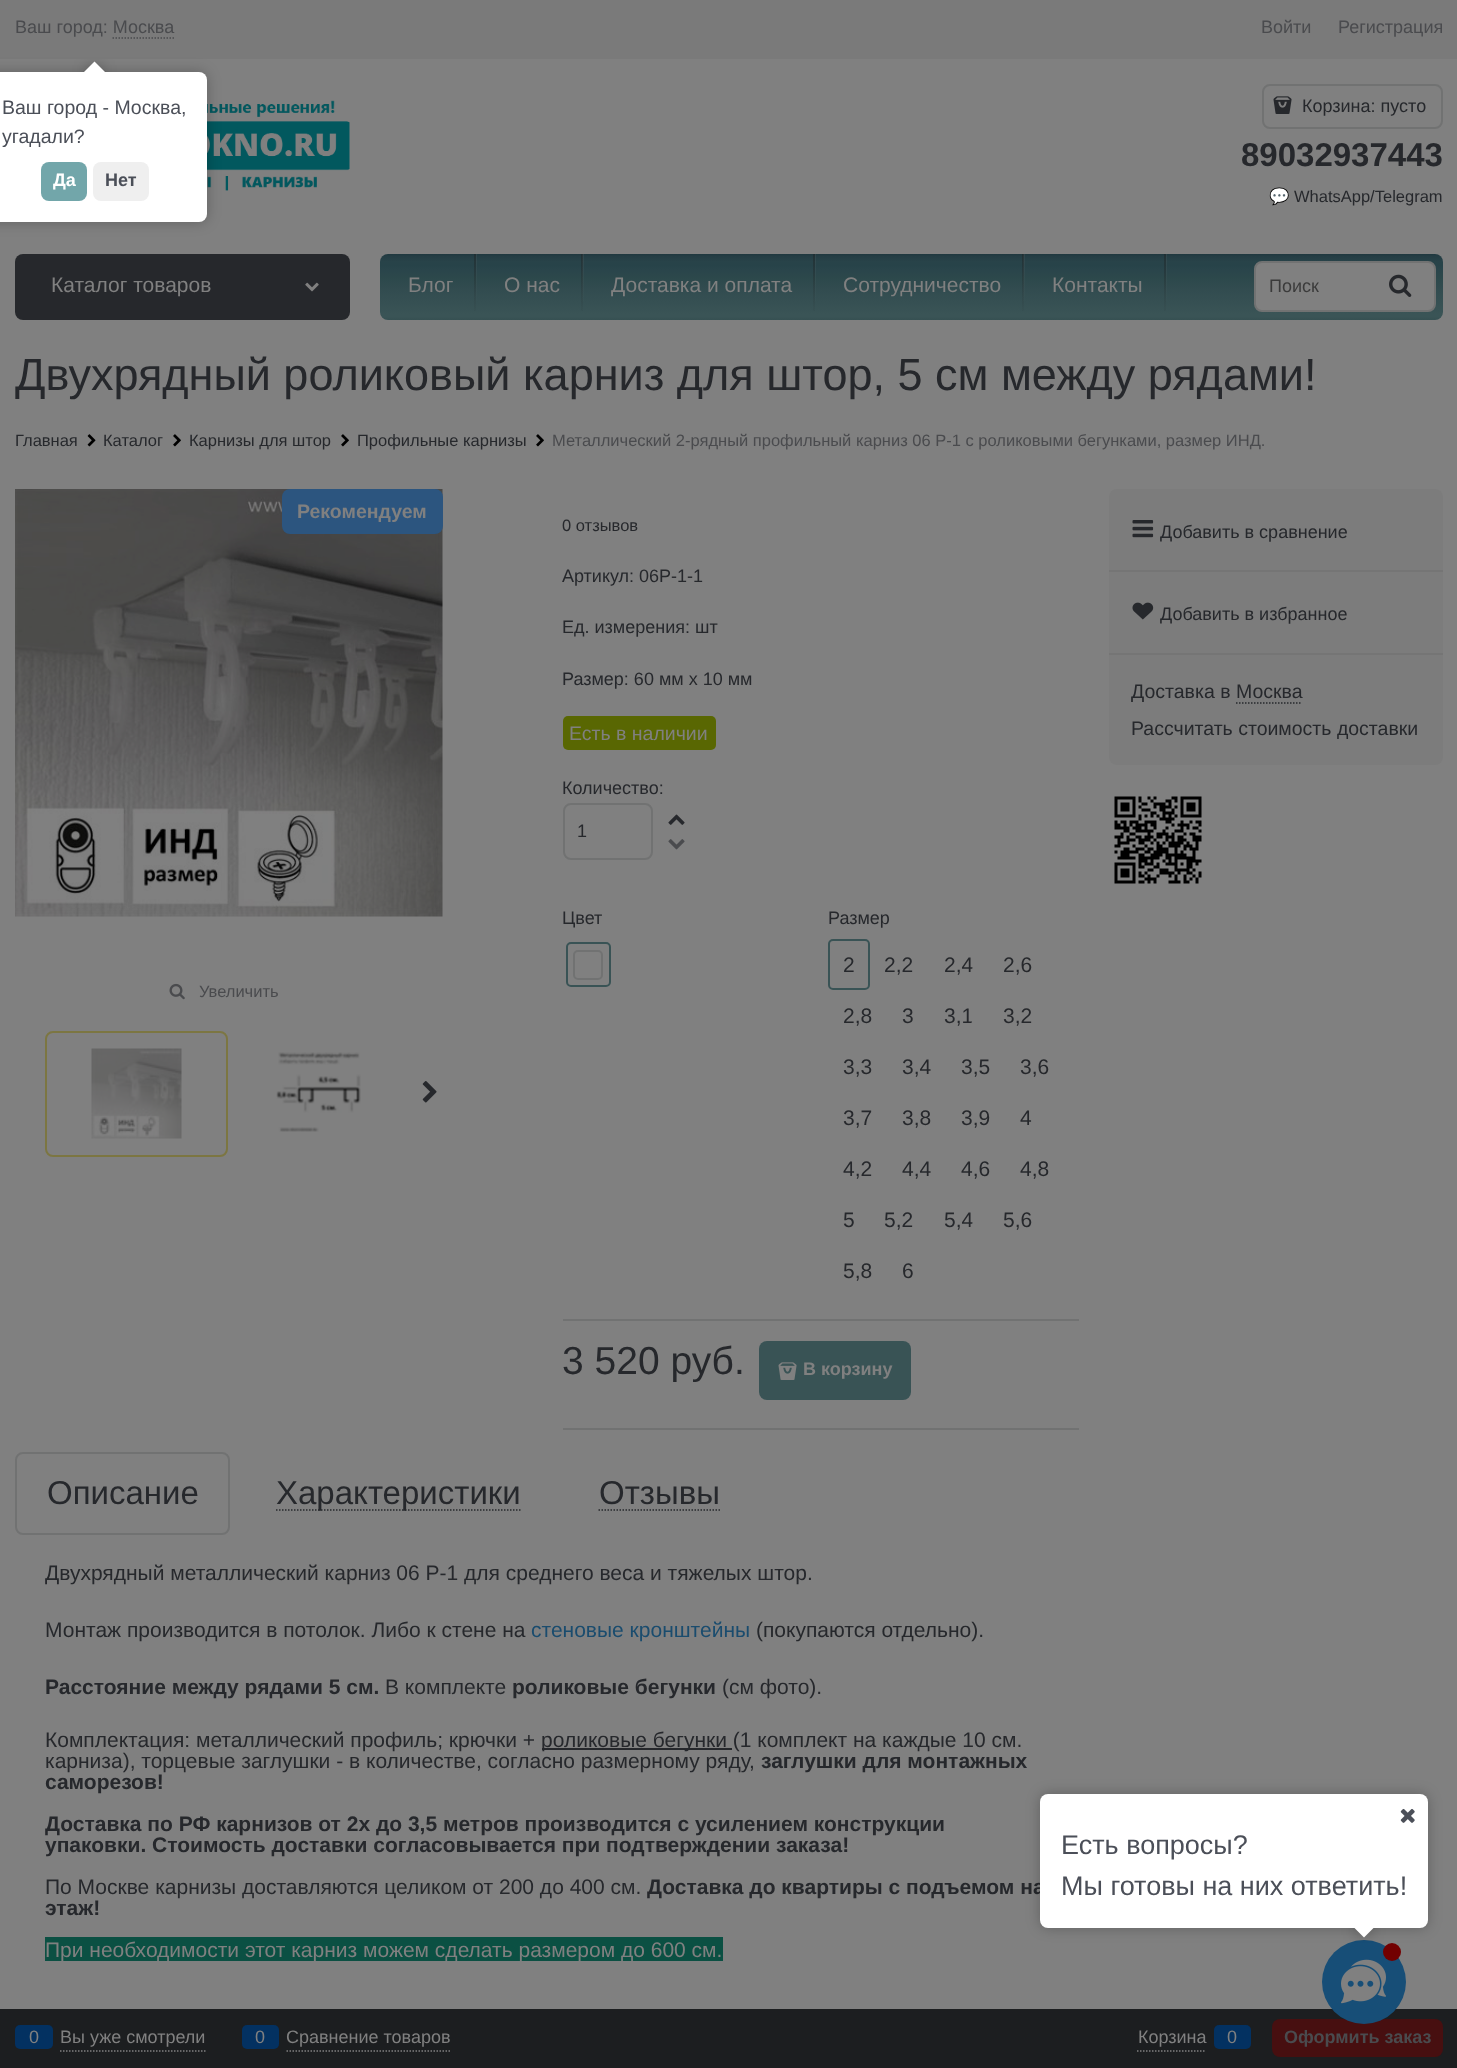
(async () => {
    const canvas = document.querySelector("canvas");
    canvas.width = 1457;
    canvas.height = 2068;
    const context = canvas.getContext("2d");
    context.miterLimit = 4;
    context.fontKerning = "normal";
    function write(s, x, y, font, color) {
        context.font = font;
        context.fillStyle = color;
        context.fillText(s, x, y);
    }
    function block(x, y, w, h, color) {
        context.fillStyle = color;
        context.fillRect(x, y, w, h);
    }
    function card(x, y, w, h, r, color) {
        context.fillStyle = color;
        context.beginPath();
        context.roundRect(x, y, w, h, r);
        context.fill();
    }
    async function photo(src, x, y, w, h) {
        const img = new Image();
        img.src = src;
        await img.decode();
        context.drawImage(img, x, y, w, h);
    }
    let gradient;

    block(0, 0, 1457, 2068, "rgb(128, 128, 128)");
    block(0, 0, 1457, 59, "rgb(122, 122, 122)");
    write("Ваш город: Москва", 15, 33, "18px Liberation Sans", "rgb(74, 75, 78)");
    context.beginPath();
    context.moveTo(112.5, 38);
    context.lineTo(174, 38);
    context.strokeStyle = "rgb(74, 75, 78)";
    context.lineWidth = 1.5;
    context.setLineDash([1.5, 1.5]);
    context.stroke();
    write("Войти", 1261, 33, "18px Liberation Sans", "rgb(74, 75, 78)");
    write("Регистрация", 1338, 33, "18px Liberation Sans", "rgb(74, 75, 78)");
    await photo("media/1.png", 207, 100, 143, 91);
    context.beginPath();
    context.roundRect(1263, 85, 179, 43, 7);
    context.strokeStyle = "rgb(113, 114, 114)";
    context.lineWidth = 2;
    context.setLineDash([]);
    context.stroke();
    await photo("media/2.png", 1273, 96, 19, 18);
    write("Корзина: пусто", 1302, 112, "18px Liberation Sans", "rgb(38, 40, 44)");
    write("89032937443", 1241, 166, "bold 33px Liberation Sans", "rgb(38, 40, 44)");
    write("💬", 1269, 202, "bold 16.5px Noto Color Emoji", "rgb(38, 40, 44)");
    write("WhatsApp/Telegram", 1294, 202, "16.5px Liberation Sans", "rgb(38, 40, 44)");
    card(15, 254, 335, 66, 8, "rgb(38, 40, 44)");
    write("Каталог товаров", 51, 292, "21px Liberation Sans", "rgb(128, 128, 128)");
    await photo("media/3.png", 305, 282, 14, 10);
    gradient = context.createLinearGradient(911, 253, 911, 320);
    gradient.addColorStop(0, "rgb(30, 54, 61)");
    gradient.addColorStop(0.05, "rgb(36, 61, 68)");
    gradient.addColorStop(0.13, "rgb(40, 67, 73)");
    gradient.addColorStop(0.18, "rgb(39, 67, 73)");
    gradient.addColorStop(0.26, "rgb(42, 69, 75)");
    gradient.addColorStop(0.36, "rgb(44, 72, 75)");
    gradient.addColorStop(0.51, "rgb(49, 75, 79)");
    gradient.addColorStop(0.92, "rgb(58, 84, 86)");
    gradient.addColorStop(0.95, "rgb(58, 84, 86)");
    gradient.addColorStop(1, "rgb(54, 80, 82)");
    context.fillStyle = gradient;
    context.beginPath();
    context.roundRect(380, 254, 1063, 66, 8);
    context.fill();
    write("Блог", 408, 292, "21px Liberation Sans", "rgb(128, 128, 128)");
    gradient = context.createLinearGradient(476, 254, 476, 320);
    gradient.addColorStop(0, "rgba(128, 128, 128, 0.14)");
    gradient.addColorStop(0.72, "rgba(128, 128, 128, 0.02)");
    gradient.addColorStop(1, "rgba(128, 128, 128, 0)");
    context.fillStyle = gradient;
    context.fillRect(476, 254, 1, 47);
    gradient = context.createLinearGradient(475, 254, 475, 320);
    gradient.addColorStop(0, "rgba(29, 29, 29, 0.39)");
    gradient.addColorStop(0.17, "rgba(29, 29, 29, 0.33)");
    gradient.addColorStop(0.61, "rgba(29, 29, 29, 0.12)");
    gradient.addColorStop(0.96, "rgba(29, 29, 29, 0.01)");
    gradient.addColorStop(0.98, "rgba(128, 128, 128, 0.01)");
    gradient.addColorStop(1, "rgba(128, 128, 128, 0)");
    context.fillStyle = gradient;
    context.fillRect(474, 254, 2, 57);
    write("О нас", 504, 292, "21px Liberation Sans", "rgb(128, 128, 128)");
    gradient = context.createLinearGradient(583, 254, 583, 320);
    gradient.addColorStop(0, "rgba(128, 128, 128, 0.14)");
    gradient.addColorStop(0.72, "rgba(128, 128, 128, 0.02)");
    gradient.addColorStop(1, "rgba(128, 128, 128, 0)");
    context.fillStyle = gradient;
    context.fillRect(582, 254, 2, 47);
    gradient = context.createLinearGradient(581, 254, 581, 320);
    gradient.addColorStop(0, "rgba(29, 29, 29, 0.39)");
    gradient.addColorStop(0.17, "rgba(29, 29, 29, 0.33)");
    gradient.addColorStop(0.61, "rgba(29, 29, 29, 0.12)");
    gradient.addColorStop(0.96, "rgba(29, 29, 29, 0.01)");
    gradient.addColorStop(0.98, "rgba(128, 128, 128, 0.01)");
    gradient.addColorStop(1, "rgba(128, 128, 128, 0)");
    context.fillStyle = gradient;
    context.fillRect(581, 254, 2, 57);
    write("Доставка и оплата", 611, 292, "21px Liberation Sans", "rgb(128, 128, 128)");
    gradient = context.createLinearGradient(815, 254, 815, 320);
    gradient.addColorStop(0, "rgba(128, 128, 128, 0.14)");
    gradient.addColorStop(0.72, "rgba(128, 128, 128, 0.02)");
    gradient.addColorStop(1, "rgba(128, 128, 128, 0)");
    context.fillStyle = gradient;
    context.fillRect(815, 254, 1, 47);
    gradient = context.createLinearGradient(814, 254, 814, 320);
    gradient.addColorStop(0, "rgba(29, 29, 29, 0.39)");
    gradient.addColorStop(0.17, "rgba(29, 29, 29, 0.33)");
    gradient.addColorStop(0.61, "rgba(29, 29, 29, 0.12)");
    gradient.addColorStop(0.96, "rgba(29, 29, 29, 0.01)");
    gradient.addColorStop(0.98, "rgba(128, 128, 128, 0.01)");
    gradient.addColorStop(1, "rgba(128, 128, 128, 0)");
    context.fillStyle = gradient;
    context.fillRect(813, 254, 2, 57);
    write("Сотрудничество", 843, 292, "21px Liberation Sans", "rgb(128, 128, 128)");
    gradient = context.createLinearGradient(1024, 254, 1024, 320);
    gradient.addColorStop(0, "rgba(128, 128, 128, 0.14)");
    gradient.addColorStop(0.72, "rgba(128, 128, 128, 0.02)");
    gradient.addColorStop(1, "rgba(128, 128, 128, 0)");
    context.fillStyle = gradient;
    context.fillRect(1023, 254, 2, 47);
    gradient = context.createLinearGradient(1022, 254, 1022, 320);
    gradient.addColorStop(0, "rgba(29, 29, 29, 0.39)");
    gradient.addColorStop(0.17, "rgba(29, 29, 29, 0.33)");
    gradient.addColorStop(0.61, "rgba(29, 29, 29, 0.12)");
    gradient.addColorStop(0.96, "rgba(29, 29, 29, 0.01)");
    gradient.addColorStop(0.98, "rgba(128, 128, 128, 0.01)");
    gradient.addColorStop(1, "rgba(128, 128, 128, 0)");
    context.fillStyle = gradient;
    context.fillRect(1022, 254, 2, 57);
    write("Контакты", 1052, 292, "21px Liberation Sans", "rgb(128, 128, 128)");
    gradient = context.createLinearGradient(1166, 254, 1166, 320);
    gradient.addColorStop(0, "rgba(128, 128, 128, 0.14)");
    gradient.addColorStop(0.72, "rgba(128, 128, 128, 0.02)");
    gradient.addColorStop(1, "rgba(128, 128, 128, 0)");
    context.fillStyle = gradient;
    context.fillRect(1166, 254, 1, 47);
    gradient = context.createLinearGradient(1165, 254, 1165, 320);
    gradient.addColorStop(0, "rgba(29, 29, 29, 0.39)");
    gradient.addColorStop(0.17, "rgba(29, 29, 29, 0.33)");
    gradient.addColorStop(0.61, "rgba(29, 29, 29, 0.12)");
    gradient.addColorStop(0.96, "rgba(29, 29, 29, 0.01)");
    gradient.addColorStop(0.98, "rgba(128, 128, 128, 0.01)");
    gradient.addColorStop(1, "rgba(128, 128, 128, 0)");
    context.fillStyle = gradient;
    context.fillRect(1164, 254, 2, 57);
    context.fillStyle = "rgb(128, 128, 128)";
    context.beginPath();
    context.roundRect(1255, 262, 180, 49, 7);
    context.fill();
    context.stroke();
    write("Поиск", 1269, 292, "18px Liberation Sans", "rgb(59, 59, 59)");
    await photo("media/4.png", 1389, 274, 23, 23);
    write("Двухрядный роликовый карниз для штор, 5 см между рядами!", 15, 390, "45px Liberation Sans", "rgb(38, 40, 44)");
    write("Главная", 15, 446, "16.5px Liberation Sans", "rgb(38, 40, 44)");
    await photo("media/5.png", 87, 434, 9, 13);
    write("Каталог", 103, 446, "16.5px Liberation Sans", "rgb(38, 40, 44)");
    await photo("media/6.png", 173, 434, 8, 13);
    write("Карнизы для штор", 189, 446, "16.5px Liberation Sans", "rgb(38, 40, 44)");
    await photo("media/6.png", 341, 434, 8, 13);
    write("Профильные карнизы", 357, 446, "16.5px Liberation Sans", "rgb(38, 40, 44)");
    await photo("media/6.png", 536, 434, 8, 13);
    write("Металлический 2-рядный профильный карниз 06 Р-1 с роликовыми бегунками, размер ИНД.", 552, 446, "16.5px Liberation Sans", "rgb(74, 75, 78)");
    await photo("media/7.png", 15, 489, 428, 428);
    card(282, 489, 161, 45, 8, "rgb(44, 85, 127)");
    write("Рекомендуем", 297, 518, "bold 19.5px Liberation Sans", "rgb(128, 128, 128)");
    await photo("media/8.png", 169, 983, 16, 17);
    write("Увеличить", 199, 997, "16.5px Liberation Sans", "rgb(74, 75, 78)");
    context.beginPath();
    context.roundRect(46, 1032, 181, 124, 7);
    context.strokeStyle = "rgb(124, 118, 66)";
    context.stroke();
    await photo("media/9.png", 91, 1048, 91, 91);
    await photo("media/10.png", 276, 1052, 85, 80);
    await photo("media/11.png", 422, 1081, 15, 22);
    write("0 отзывов", 562, 531, "16.5px Liberation Sans", "rgb(38, 40, 44)");
    write("Артикул:", 562, 582, "18px Liberation Sans", "rgb(38, 40, 44)");
    write("06Р-1-1", 639, 582, "18px Liberation Sans", "rgb(38, 40, 44)");
    write("Ед. измерения:", 562, 633, "18px Liberation Sans", "rgb(38, 40, 44)");
    write("шт", 695, 633, "18px Liberation Sans", "rgb(38, 40, 44)");
    write("Размер: 60 мм х 10 мм", 562, 685, "18px Liberation Sans", "rgb(38, 40, 44)");
    card(563, 716, 153, 34, 5, "rgb(89, 103, 2)");
    write("Есть в наличии", 569, 740, "19.5px Liberation Sans", "rgb(128, 128, 128)");
    write("Количество:", 562, 794, "18px Liberation Sans", "rgb(38, 40, 44)");
    context.beginPath();
    context.roundRect(564, 804, 88, 55, 7);
    context.strokeStyle = "rgb(113, 114, 114)";
    context.stroke();
    write("1", 577, 837, "18px Liberation Sans", "rgb(38, 40, 44)");
    await photo("media/12.png", 668, 814, 17, 11);
    await photo("media/13.png", 668, 839, 17, 11);
    write("Цвет", 562, 924, "18px Liberation Sans", "rgb(38, 40, 44)");
    context.beginPath();
    context.roundRect(567, 943, 43, 43, 4);
    context.strokeStyle = "rgb(57, 83, 85)";
    context.stroke();
    context.beginPath();
    context.roundRect(574, 951, 28, 28, 4);
    context.strokeStyle = "rgb(113, 114, 114)";
    context.stroke();
    write("Размер", 828, 924, "18px Liberation Sans", "rgb(38, 40, 44)");
    context.beginPath();
    context.roundRect(829, 940, 40, 49, 4);
    context.strokeStyle = "rgb(57, 83, 85)";
    context.stroke();
    write("2", 843, 972, "21px Liberation Sans", "rgb(38, 40, 44)");
    write("2,2", 884, 972, "21px Liberation Sans", "rgb(38, 40, 44)");
    write("2,4", 944, 972, "21px Liberation Sans", "rgb(38, 40, 44)");
    context.beginPath();
    context.arc(957, 965, 17, 0, Math.PI * 2);
    context.strokeStyle = "rgb(128, 128, 128)";
    context.stroke();
    write("2,6", 1003, 972, "21px Liberation Sans", "rgb(38, 40, 44)");
    write("2,8", 843, 1023, "21px Liberation Sans", "rgb(38, 40, 44)");
    write("3", 902, 1023, "21px Liberation Sans", "rgb(38, 40, 44)");
    write("3,1", 944, 1023, "21px Liberation Sans", "rgb(38, 40, 44)");
    context.beginPath();
    context.arc(957, 1016, 17, 0, Math.PI * 2);
    context.stroke();
    write("3,2", 1003, 1023, "21px Liberation Sans", "rgb(38, 40, 44)");
    write("3,3", 843, 1074, "21px Liberation Sans", "rgb(38, 40, 44)");
    write("3,4", 902, 1074, "21px Liberation Sans", "rgb(38, 40, 44)");
    write("3,5", 961, 1074, "21px Liberation Sans", "rgb(38, 40, 44)");
    write("3,6", 1020, 1074, "21px Liberation Sans", "rgb(38, 40, 44)");
    write("3,7", 843, 1125, "21px Liberation Sans", "rgb(38, 40, 44)");
    write("3,8", 902, 1125, "21px Liberation Sans", "rgb(38, 40, 44)");
    write("3,9", 961, 1125, "21px Liberation Sans", "rgb(38, 40, 44)");
    write("4", 1020, 1125, "21px Liberation Sans", "rgb(38, 40, 44)");
    write("4,2", 843, 1176, "21px Liberation Sans", "rgb(38, 40, 44)");
    write("4,4", 902, 1176, "21px Liberation Sans", "rgb(38, 40, 44)");
    write("4,6", 961, 1176, "21px Liberation Sans", "rgb(38, 40, 44)");
    write("4,8", 1020, 1176, "21px Liberation Sans", "rgb(38, 40, 44)");
    write("5", 843, 1227, "21px Liberation Sans", "rgb(38, 40, 44)");
    write("5,2", 884, 1227, "21px Liberation Sans", "rgb(38, 40, 44)");
    write("5,4", 944, 1227, "21px Liberation Sans", "rgb(38, 40, 44)");
    context.beginPath();
    context.arc(957, 1220, 17, 0, Math.PI * 2);
    context.stroke();
    write("5,6", 1003, 1227, "21px Liberation Sans", "rgb(38, 40, 44)");
    write("5,8", 843, 1278, "21px Liberation Sans", "rgb(38, 40, 44)");
    write("6", 902, 1278, "21px Liberation Sans", "rgb(38, 40, 44)");
    block(563, 1319, 516, 2, "rgb(113, 114, 114)");
    block(563, 1428, 516, 2, "rgb(113, 114, 114)");
    write("3 520 руб.", 562, 1374, "39px Liberation Sans", "rgb(38, 40, 44)");
    card(759, 1341, 152, 59, 8, "rgb(57, 83, 85)");
    await photo("media/14.png", 778, 1362, 19, 18);
    write("В корзину", 803, 1375, "bold 18px Liberation Sans", "rgb(128, 128, 128)");
    context.beginPath();
    context.roundRect(16, 1453, 213, 81, 7);
    context.strokeStyle = "rgb(113, 114, 114)";
    context.stroke();
    write("Описание", 47, 1504, "33px Liberation Sans", "rgb(38, 40, 44)");
    context.beginPath();
    context.moveTo(276, 1510);
    context.lineTo(520.5, 1510);
    context.strokeStyle = "rgb(38, 40, 44)";
    context.lineWidth = 1.5;
    context.setLineDash([1.5, 1.5]);
    context.stroke();
    write("Характеристики", 276, 1504, "33px Liberation Sans", "rgb(38, 40, 44)");
    context.beginPath();
    context.moveTo(598.5, 1510);
    context.lineTo(720, 1510);
    context.stroke();
    write("Отзывы", 599, 1504, "33px Liberation Sans", "rgb(38, 40, 44)");
    write("Двухрядный металлический карниз 06 Р-1 для среднего веса и тяжелых штор.", 45, 1580, "21px Liberation Sans", "rgb(38, 40, 44)");
    write("Монтаж производится в потолок. Либо к стене на", 45, 1637, "21px Liberation Sans", "rgb(38, 40, 44)");
    write("стеновые кронштейны", 531, 1637, "21px Liberation Sans", "rgb(26, 76, 110)");
    write("(покупаются отдельно).", 756, 1637, "21px Liberation Sans", "rgb(38, 40, 44)");
    write("Расстояние между рядами 5 см.", 45, 1694, "bold 21px Liberation Sans", "rgb(38, 40, 44)");
    write("В комплекте", 385, 1694, "21px Liberation Sans", "rgb(38, 40, 44)");
    write("роликовые бегунки", 512, 1694, "bold 21px Liberation Sans", "rgb(38, 40, 44)");
    write("(см фото).", 722, 1694, "21px Liberation Sans", "rgb(38, 40, 44)");
    write("Комплектация: металлический профиль; крючки +", 45, 1747, "21px Liberation Sans", "rgb(38, 40, 44)");
    block(542, 1748, 190, 2, "rgb(38, 40, 44)");
    write("роликовые бегунки (1 комплект на каждые 10 см.", 541, 1747, "21px Liberation Sans", "rgb(38, 40, 44)");
    write("карниза), торцевые заглушки - в количестве, согласно размерному ряду,", 45, 1768, "21px Liberation Sans", "rgb(38, 40, 44)");
    write("заглушки для монтажных", 761, 1768, "bold 21px Liberation Sans", "rgb(38, 40, 44)");
    write("саморезов!", 45, 1789, "bold 21px Liberation Sans", "rgb(38, 40, 44)");
    write("Доставка по РФ карнизов от 2х до 3,5 метров производится с усилением конструкции", 45, 1831, "bold 21px Liberation Sans", "rgb(38, 40, 44)");
    write("упаковки. Стоимость доставки согласовывается при подтверждении заказа!", 45, 1852, "bold 21px Liberation Sans", "rgb(38, 40, 44)");
    write("По Москве карнизы доставляются целиком от 200 до 400 см.", 45, 1894, "21px Liberation Sans", "rgb(38, 40, 44)");
    write("Доставка до квартиры с подъемом на", 647, 1894, "bold 21px Liberation Sans", "rgb(38, 40, 44)");
    write("этаж!", 45, 1915, "bold 21px Liberation Sans", "rgb(38, 40, 44)");
    block(45, 1937, 678, 24, "rgb(11, 80, 67)");
    write("При необходимости этот карниз можем сделать размером до 600 см.", 45, 1957, "21px Liberation Sans", "rgb(128, 128, 128)");
    card(1109, 489, 334, 276, 8, "rgb(124, 124, 124)");
    block(1109, 570, 334, 2, "rgb(117, 117, 117)");
    await photo("media/15.png", 1132, 520, 22, 18);
    write("Добавить в сравнение", 1160, 538, "18px Liberation Sans", "rgb(38, 40, 44)");
    block(1109, 653, 334, 2, "rgb(117, 117, 117)");
    await photo("media/16.png", 1132, 602, 22, 18);
    write("Добавить в избранное", 1160, 620, "18px Liberation Sans", "rgb(38, 40, 44)");
    write("Доставка в Москва", 1131, 698, "19.5px Liberation Sans", "rgb(38, 40, 44)");
    context.beginPath();
    context.moveTo(1236, 703);
    context.lineTo(1302, 703);
    context.stroke();
    write("Рассчитать стоимость доставки", 1131, 735, "19.5px Liberation Sans", "rgb(38, 40, 44)");
    await photo("media/17.png", 1114, 796, 88, 88);
    block(0, 2009, 1457, 59, "rgb(28, 30, 32)");
    context.beginPath();
    context.moveTo(60, 2051);
    context.lineTo(205.5, 2051);
    context.strokeStyle = "rgb(128, 128, 128)";
    context.stroke();
    card(15, 2025, 38, 24, 5, "rgb(3, 49, 97)");
    write("0", 29, 2043, "18px Liberation Sans", "rgb(128, 128, 128)");
    write("Вы уже смотрели", 60, 2043, "18px Liberation Sans", "rgb(128, 128, 128)");
    context.beginPath();
    context.moveTo(286.5, 2051);
    context.lineTo(450, 2051);
    context.stroke();
    card(242, 2025, 37, 24, 5, "rgb(3, 49, 97)");
    write("0", 255, 2043, "18px Liberation Sans", "rgb(128, 128, 128)");
    write("Сравнение товаров", 286, 2043, "18px Liberation Sans", "rgb(128, 128, 128)");
    context.beginPath();
    context.moveTo(1137, 2051);
    context.lineTo(1206, 2051);
    context.stroke();
    write("Корзина", 1138, 2043, "18px Liberation Sans", "rgb(128, 128, 128)");
    card(1214, 2025, 37, 24, 5, "rgb(3, 49, 97)");
    write("0", 1227, 2043, "18px Liberation Sans", "rgb(128, 128, 128)");
    card(1272, 2019, 171, 38, 8, "rgb(71, 15, 16)");
    write("Оформить заказ", 1284, 2043, "bold 18px Liberation Sans", "rgb(74, 75, 78)");
    context.fillStyle = "rgba(0, 0, 0, 0.25)";
    context.filter = "blur(7px)";
    context.beginPath();
    context.roundRect(-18, 72, 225, 150, 8);
    context.fill();
    context.filter = "none";
    card(-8, 72, 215, 150, 8, "rgb(255, 255, 255)");
    context.save();
    context.beginPath();
    context.rect(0, 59, 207, 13);
    context.clip();
    context.fillStyle = "rgba(0, 0, 0, 0.25)";
    context.filter = "blur(7px)";
    context.beginPath();
    context.rect(87, 65, 15, 15);
    context.fill();
    context.filter = "none";
    context.restore();
    context.save();
    context.beginPath();
    context.rect(0, 59, 207, 13);
    context.clip();
    context.beginPath();
    context.moveTo(94.5, 61.5);
    context.lineTo(105, 72);
    context.lineTo(94.5, 82.5);
    context.lineTo(84, 72);
    context.closePath();
    context.fill();
    context.restore();
    write("Ваш город - Москва,", 2, 114, "19.5px Liberation Sans", "rgb(75, 79, 88)");
    write("угадали?", 2, 143, "19.5px Liberation Sans", "rgb(75, 79, 88)");
    card(41, 162, 46, 39, 8, "rgb(114, 166, 170)");
    write("Да", 53, 186, "bold 18px Liberation Sans", "rgb(255, 255, 255)");
    card(93, 162, 56, 39, 8, "rgb(239, 239, 239)");
    write("Нет", 105, 186, "bold 18px Liberation Sans", "rgb(75, 79, 88)");
    context.fillStyle = "rgb(23, 78, 119)";
    context.beginPath();
    context.arc(1364, 1982, 42, 0, Math.PI * 2);
    context.fill();
    await photo("media/19.png", 1341, 1959, 45, 45);
    context.fillStyle = "rgb(114, 0, 1)";
    context.beginPath();
    context.arc(1392, 1952, 9, 0, Math.PI * 2);
    context.fill();
    context.fillStyle = "rgba(0, 0, 0, 0.25)";
    context.filter = "blur(7px)";
    context.beginPath();
    context.roundRect(1040, 1794, 388, 134, 8);
    context.fill();
    context.filter = "none";
    card(1040, 1794, 388, 134, 8, "rgb(255, 255, 255)");
    await photo("media/18.png", 1400, 1808, 15, 15);
    write("Есть вопросы?", 1061, 1854, "27px Liberation Sans", "rgb(75, 79, 88)");
    write("Мы готовы на них ответить!", 1061, 1895, "27px Liberation Sans", "rgb(75, 79, 88)");
    context.save();
    context.beginPath();
    context.rect(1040, 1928, 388, 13);
    context.clip();
    context.fillStyle = "rgba(0, 0, 0, 0.25)";
    context.filter = "blur(7px)";
    context.beginPath();
    context.rect(1356, 1920, 15, 15);
    context.fill();
    context.filter = "none";
    context.restore();
    context.save();
    context.beginPath();
    context.rect(1040, 1928, 388, 13);
    context.clip();
    context.fillStyle = "rgb(255, 255, 255)";
    context.beginPath();
    context.moveTo(1364, 1916.5);
    context.lineTo(1374.5, 1927);
    context.lineTo(1364, 1937.5);
    context.lineTo(1353.5, 1927);
    context.closePath();
    context.fill();
    context.restore();
})();
